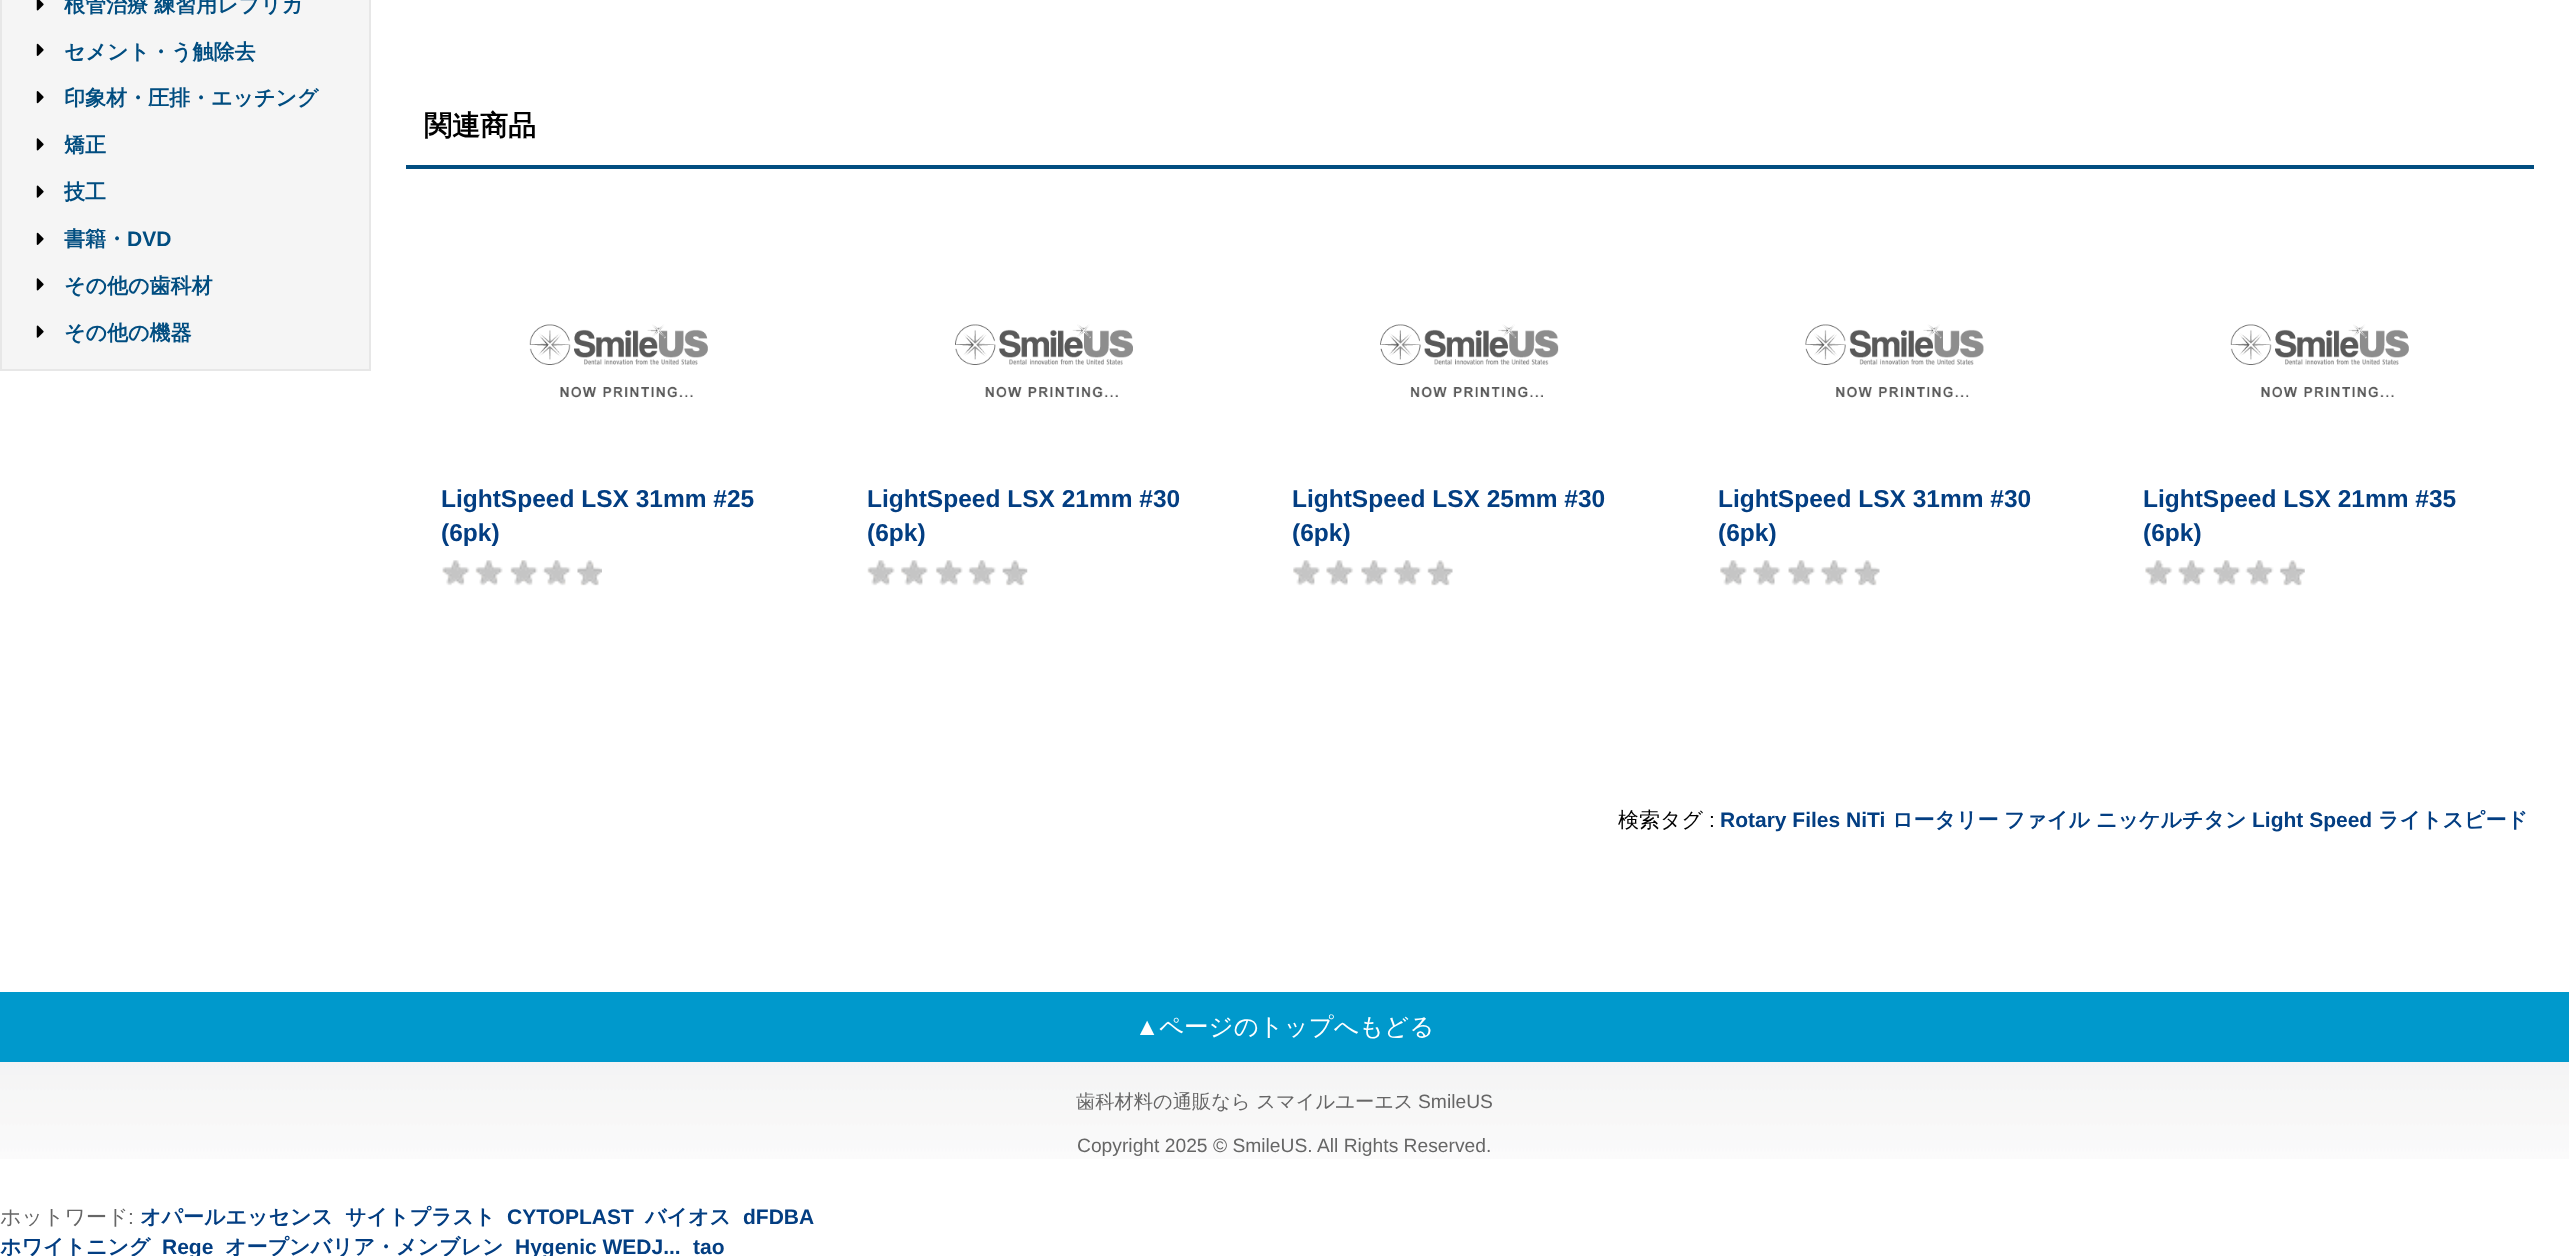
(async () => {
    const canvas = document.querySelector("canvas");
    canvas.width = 2569;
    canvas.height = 1256;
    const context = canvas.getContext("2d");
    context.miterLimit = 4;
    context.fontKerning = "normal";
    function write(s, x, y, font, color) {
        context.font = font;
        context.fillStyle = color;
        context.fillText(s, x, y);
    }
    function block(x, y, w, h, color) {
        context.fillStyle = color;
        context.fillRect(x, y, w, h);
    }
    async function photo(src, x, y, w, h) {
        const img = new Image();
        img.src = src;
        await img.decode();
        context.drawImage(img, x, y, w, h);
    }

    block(0, 0, 2569, 1256, "rgb(255, 255, 255)");
    context.fillStyle = "rgb(245, 245, 245)";
    context.beginPath();
    context.rect(1, -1, 369, 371);
    context.fill();
    context.strokeStyle = "rgb(231, 231, 231)";
    context.lineWidth = 2;
    context.stroke();
    await photo("media/1.png", 36, 0, 8, 11);
    write("根管治療 練習用レプリカ", 64, 12, "bold 21px WenQuanYi Zen Hei", "rgb(1, 77, 128)");
    await photo("media/2.png", 36, 43, 8, 13);
    write("セメント・う触除去", 64, 59, "bold 21px WenQuanYi Zen Hei", "rgb(1, 77, 128)");
    await photo("media/3.png", 36, 91, 8, 13);
    write("印象材・圧排・エッチング", 64, 105, "bold 21px WenQuanYi Zen Hei", "rgb(1, 77, 128)");
    await photo("media/4.png", 36, 138, 8, 13);
    write("矯正", 64, 152, "bold 21px WenQuanYi Zen Hei", "rgb(1, 77, 128)");
    await photo("media/5.png", 36, 185, 8, 13);
    write("技工", 64, 199, "bold 21px WenQuanYi Zen Hei", "rgb(1, 77, 128)");
    await photo("media/2.png", 36, 232, 8, 13);
    write("書籍・", 64, 246, "bold 21px WenQuanYi Zen Hei", "rgb(1, 77, 128)");
    write("DVD", 127, 246, "bold 21px Liberation Sans", "rgb(1, 77, 128)");
    await photo("media/4.png", 36, 278, 8, 13);
    write("その他の歯科材", 64, 293, "bold 21px WenQuanYi Zen Hei", "rgb(1, 77, 128)");
    await photo("media/5.png", 36, 325, 8, 13);
    write("その他の機器", 64, 340, "bold 21px WenQuanYi Zen Hei", "rgb(1, 77, 128)");
    block(406, 165, 2128, 4, "rgb(1, 77, 128)");
    write("関連商品", 424, 135, "bold 28px WenQuanYi Zen Hei", "rgb(0, 0, 0)");
    await photo("media/6.png", 529, 324, 179, 74);
    write("LightSpeed LSX 31mm #25", 441, 507, "bold 24.5px Liberation Sans", "rgb(3, 62, 130)");
    write("(6pk)", 441, 541, "bold 24.5px Liberation Sans", "rgb(3, 62, 130)");
    await photo("media/7.png", 442, 560, 160, 26);
    await photo("media/8.png", 955, 324, 178, 74);
    write("LightSpeed LSX 21mm #30", 867, 507, "bold 24.5px Liberation Sans", "rgb(3, 62, 130)");
    write("(6pk)", 867, 541, "bold 24.5px Liberation Sans", "rgb(3, 62, 130)");
    await photo("media/9.png", 867, 560, 161, 26);
    await photo("media/10.png", 1380, 324, 179, 74);
    write("LightSpeed LSX 25mm #30", 1292, 507, "bold 24.5px Liberation Sans", "rgb(3, 62, 130)");
    write("(6pk)", 1292, 541, "bold 24.5px Liberation Sans", "rgb(3, 62, 130)");
    await photo("media/11.png", 1293, 560, 160, 26);
    await photo("media/12.png", 1805, 324, 179, 74);
    write("LightSpeed LSX 31mm #30", 1718, 507, "bold 24.5px Liberation Sans", "rgb(3, 62, 130)");
    write("(6pk)", 1718, 541, "bold 24.5px Liberation Sans", "rgb(3, 62, 130)");
    await photo("media/13.png", 1720, 560, 160, 26);
    await photo("media/14.png", 2230, 324, 179, 74);
    write("LightSpeed LSX 21mm #35", 2143, 507, "bold 24.5px Liberation Sans", "rgb(3, 62, 130)");
    write("(6pk)", 2143, 541, "bold 24.5px Liberation Sans", "rgb(3, 62, 130)");
    await photo("media/15.png", 2145, 560, 160, 26);
    write("検索タグ", 1618, 827, "500 21px WenQuanYi Zen Hei", "rgb(0, 0, 0)");
    write(":", 1709, 827, "21px Liberation Sans", "rgb(0, 0, 0)");
    write("Rotary Files NiTi", 1720, 827, "bold 21px Liberation Sans", "rgb(3, 62, 130)");
    write("ロータリー", 1892, 827, "bold 21px WenQuanYi Zen Hei", "rgb(3, 62, 130)");
    write("ファイル", 2004, 827, "bold 21px WenQuanYi Zen Hei", "rgb(3, 62, 130)");
    write("ニッケルチタン", 2096, 827, "bold 21px WenQuanYi Zen Hei", "rgb(3, 62, 130)");
    write("Light Speed", 2252, 827, "bold 21px Liberation Sans", "rgb(3, 62, 130)");
    write("ライトスピード", 2378, 827, "bold 21px WenQuanYi Zen Hei", "rgb(3, 62, 130)");
    await photo("media/16.png", 0, 1062, 2569, 97);
    block(0, 992, 2569, 70, "rgb(0, 153, 204)");
    write("▲", 1135, 1035, "24.5px Liberation Sans", "rgb(255, 255, 255)");
    write("ページのトップへもどる", 1159, 1035, "500 24.5px WenQuanYi Zen Hei", "rgb(255, 255, 255)");
    write("歯科材料の通販なら スマイルユーエス", 1076, 1108, "500 19.25px WenQuanYi Zen Hei", "rgb(102, 102, 102)");
    write("SmileUS", 1418, 1108, "19.25px Liberation Sans", "rgb(102, 102, 102)");
    write("Copyright 2025 © SmileUS. All Rights Reserved.", 1077, 1152, "19.25px Liberation Sans", "rgb(102, 102, 102)");
    write("ホットワード", 0, 1224, "500 21px WenQuanYi Zen Hei", "rgb(102, 102, 102)");
    write(":", 128, 1224, "21px Liberation Sans", "rgb(102, 102, 102)");
    write("オパールエッセンス", 140, 1224, "bold 21px WenQuanYi Zen Hei", "rgb(3, 62, 130)");
    write("サイトプラスト", 345, 1224, "bold 21px WenQuanYi Zen Hei", "rgb(3, 62, 130)");
    write("CYTOPLAST", 507, 1224, "bold 21px Liberation Sans", "rgb(3, 62, 130)");
    write("バイオス", 645, 1224, "bold 21px WenQuanYi Zen Hei", "rgb(3, 62, 130)");
    write("dFDBA", 743, 1224, "bold 21px Liberation Sans", "rgb(3, 62, 130)");
    write("ホワイトニング", 0, 1254, "bold 21px WenQuanYi Zen Hei", "rgb(3, 62, 130)");
    write("Rege", 162, 1254, "bold 21px Liberation Sans", "rgb(3, 62, 130)");
    write("オープンバリア・メンブレン", 225, 1254, "bold 21px WenQuanYi Zen Hei", "rgb(3, 62, 130)");
    write("Hygenic WEDJ...", 515, 1254, "bold 21px Liberation Sans", "rgb(3, 62, 130)");
    write("tao", 693, 1254, "bold 21px Liberation Sans", "rgb(3, 62, 130)");
})();
